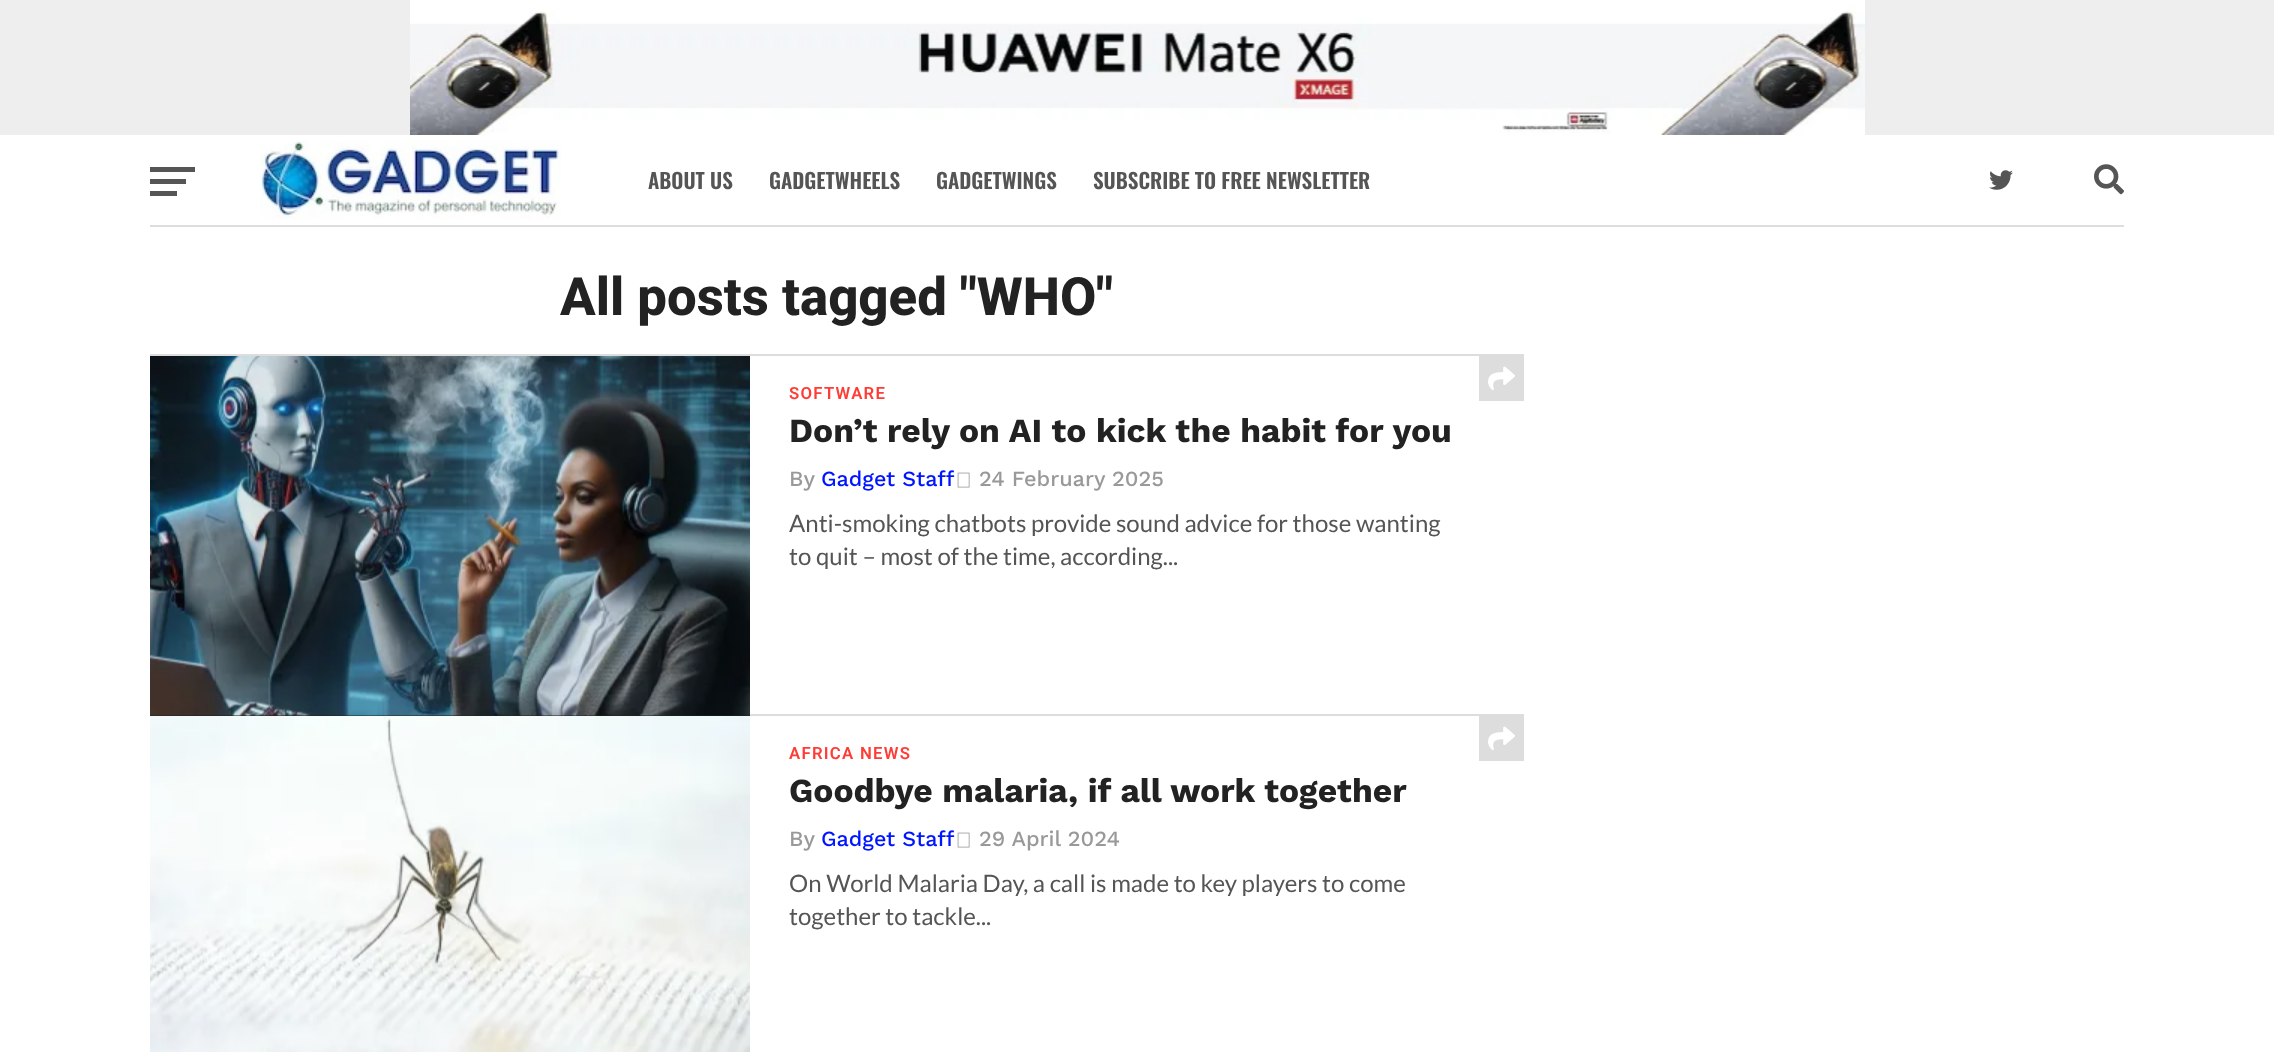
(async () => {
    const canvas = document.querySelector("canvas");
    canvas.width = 2274;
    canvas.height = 1052;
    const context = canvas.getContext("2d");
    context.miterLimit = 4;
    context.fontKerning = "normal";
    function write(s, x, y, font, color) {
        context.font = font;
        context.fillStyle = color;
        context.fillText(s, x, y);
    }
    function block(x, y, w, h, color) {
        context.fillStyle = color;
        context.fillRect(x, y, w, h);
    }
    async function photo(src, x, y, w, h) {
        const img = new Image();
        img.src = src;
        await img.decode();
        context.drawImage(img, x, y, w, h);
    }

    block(0, 0, 2274, 1052, "rgb(255, 255, 255)");
    block(0, 0, 2274, 135, "rgb(238, 238, 238)");
    await photo("media/1.png", 410, 0, 1455, 135);
    block(150, 167, 45, 5, "rgb(85, 85, 85)");
    block(150, 179, 36, 5, "rgb(85, 85, 85)");
    block(150, 191, 27, 5, "rgb(85, 85, 85)");
    await photo("media/2.png", 260, 141, 301, 78);
    write("ABOUT US", 648, 189, "600 21px Oswald", "rgb(85, 85, 85)");
    write("GADGETWHEELS", 769, 189, "600 21px Oswald", "rgb(85, 85, 85)");
    write("GADGETWINGS", 936, 189, "600 21px Oswald", "rgb(85, 85, 85)");
    write("SUBSCRIBE TO FREE NEWSLETTER", 1093, 189, "600 21px Oswald", "rgb(85, 85, 85)");
    await photo("media/3.png", 1989, 170, 24, 20);
    await photo("media/4.png", 2094, 164, 30, 31);
    block(150, 225, 1974, 2, "rgb(221, 221, 221)");
    write("All posts tagged \"WHO\"", 560, 315, "800 52.75px Roboto", "rgb(34, 34, 34)");
    block(150, 354, 1374, 2, "rgb(221, 221, 221)");
    block(150, 356, 600, 360, "rgb(34, 34, 34)");
    await photo("media/5.png", 150, 356, 600, 360);
    block(750, 714, 774, 2, "rgb(221, 221, 221)");
    context.letterSpacing = "1.25px";
    write("SOFTWARE", 789, 399, "600 16.75px Roboto", "rgb(255, 60, 54)");
    block(1479, 356, 45, 45, "rgb(221, 221, 221)");
    await photo("media/6.png", 1488, 366, 27, 24);
    context.letterSpacing = "0px";
    write("Don’t rely on AI to kick the habit for you", 789, 442, "bold 33.6px Work Sans", "rgb(34, 34, 34)");
    write("By", 789, 486, "500 21.75px Work Sans", "rgb(153, 153, 153)");
    write("Gadget Staff", 821, 486, "500 21.5px Work Sans", "rgb(0, 21, 255)");
    await photo("media/7.png", 957, 472, 13, 16);
    write("24 February 2025", 979, 486, "500 21.75px Work Sans", "rgb(153, 153, 153)");
    write("Anti-smoking chatbots provide sound advice for those wanting", 789, 532, "24px Lato", "rgb(85, 85, 85)");
    write("to quit – most of the time, according...", 789, 565, "24px Lato", "rgb(85, 85, 85)");
    await photo("media/8.png", 150, 716, 600, 336);
    context.letterSpacing = "1.25px";
    write("AFRICA NEWS", 789, 759, "600 16.75px Roboto", "rgb(255, 60, 54)");
    block(1479, 716, 45, 45, "rgb(221, 221, 221)");
    await photo("media/6.png", 1488, 726, 27, 24);
    context.letterSpacing = "0px";
    write("Goodbye malaria, if all work together", 789, 802, "bold 33.6px Work Sans", "rgb(34, 34, 34)");
    write("By", 789, 846, "500 21.75px Work Sans", "rgb(153, 153, 153)");
    write("Gadget Staff", 821, 846, "500 21.5px Work Sans", "rgb(0, 21, 255)");
    await photo("media/7.png", 957, 832, 13, 16);
    write("29 April 2024", 979, 846, "500 21.75px Work Sans", "rgb(153, 153, 153)");
    write("On World Malaria Day, a call is made to key players to come", 789, 892, "24px Lato", "rgb(85, 85, 85)");
    write("together to tackle...", 789, 925, "24px Lato", "rgb(85, 85, 85)");
})();
